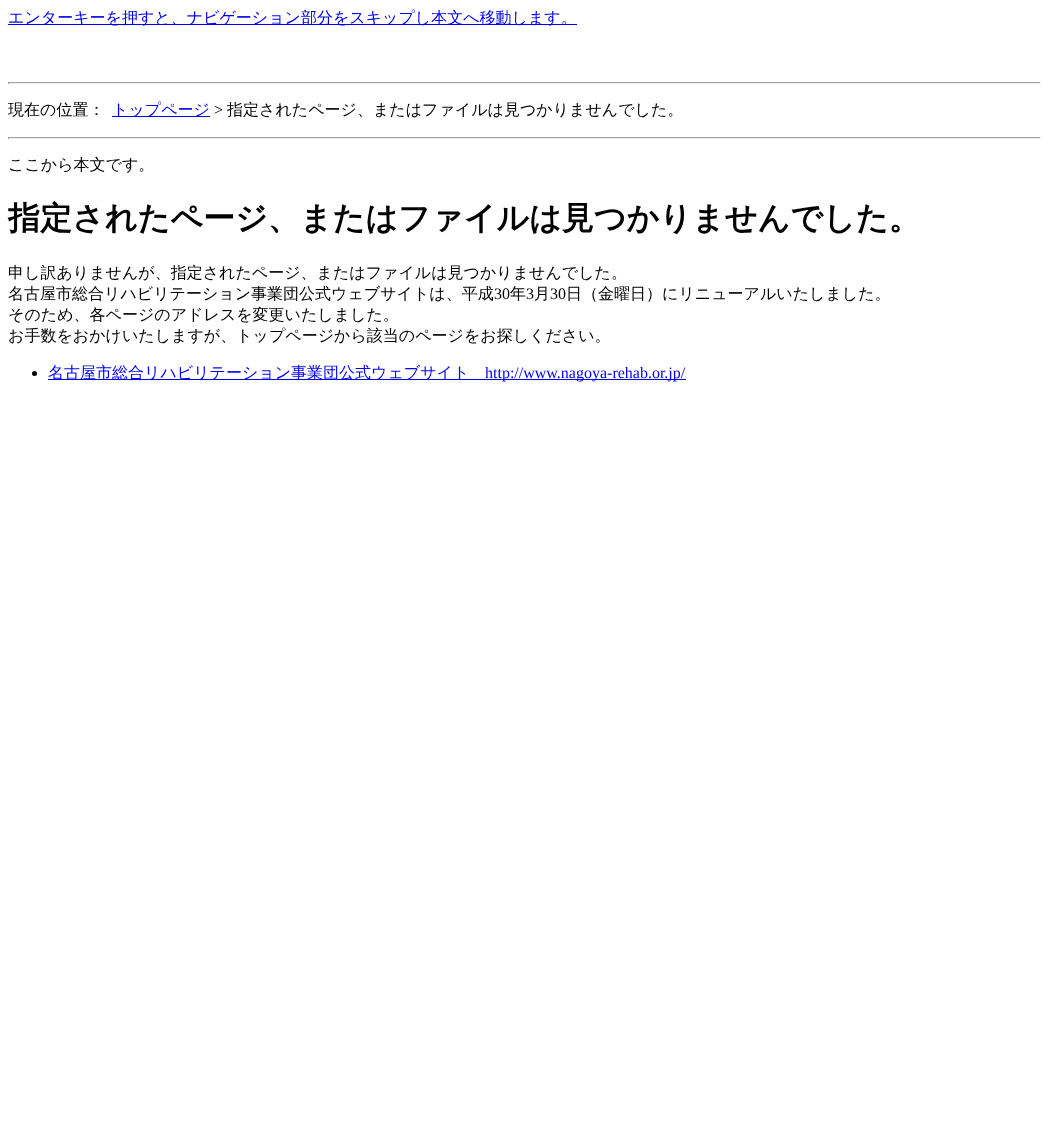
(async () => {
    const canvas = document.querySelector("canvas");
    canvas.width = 1049;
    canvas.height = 1127;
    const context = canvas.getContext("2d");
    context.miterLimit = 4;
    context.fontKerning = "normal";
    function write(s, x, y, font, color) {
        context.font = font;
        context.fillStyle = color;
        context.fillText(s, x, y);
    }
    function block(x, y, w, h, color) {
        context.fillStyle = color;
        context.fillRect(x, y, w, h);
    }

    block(0, 0, 1049, 1127, "rgb(255, 255, 255)");
    block(8, 24, 569, 1, "rgb(0, 0, 238)");
    write("エンターキーを押すと、ナビゲーション部分をスキップし本文へ移動します。", 8, 23, "500 16px WenQuanYi Zen Hei", "rgb(0, 0, 238)");
    block(8, 82, 1033, 1, "rgb(159, 159, 159)");
    block(1040, 82, 1, 2, "rgb(238, 238, 238)");
    block(8, 83, 1033, 1, "rgb(238, 238, 238)");
    block(8, 82, 1, 2, "rgb(159, 159, 159)");
    write("現在の位置：", 8, 115, "500 16px WenQuanYi Zen Hei", "rgb(0, 0, 0)");
    block(112, 116, 98, 1, "rgb(0, 0, 238)");
    write("トップページ", 112, 115, "500 16px WenQuanYi Zen Hei", "rgb(0, 0, 238)");
    write(">", 214, 115, "16px Liberation Serif", "rgb(0, 0, 0)");
    write("指定されたページ、またはファイルは見つかりませんでした。", 227, 115, "500 16px WenQuanYi Zen Hei", "rgb(0, 0, 0)");
    block(8, 137, 1033, 1, "rgb(159, 159, 159)");
    block(1040, 137, 1, 2, "rgb(238, 238, 238)");
    block(8, 138, 1033, 1, "rgb(238, 238, 238)");
    block(8, 137, 1, 2, "rgb(159, 159, 159)");
    write("ここから本文です。", 8, 170, "500 16px WenQuanYi Zen Hei", "rgb(0, 0, 0)");
    write("指定されたページ、またはファイルは見つかりませんでした。", 8, 229, "bold 32px WenQuanYi Zen Hei", "rgb(0, 0, 0)");
    write("申し訳ありませんが、指定されたページ、またはファイルは見つかりませんでした。", 8, 278, "500 16px WenQuanYi Zen Hei", "rgb(0, 0, 0)");
    write("名古屋市総合リハビリテーション事業団公式ウェブサイトは、平成", 8, 299, "500 16px WenQuanYi Zen Hei", "rgb(0, 0, 0)");
    write("30", 494, 299, "16px Liberation Serif", "rgb(0, 0, 0)");
    write("年", 510, 299, "500 16px WenQuanYi Zen Hei", "rgb(0, 0, 0)");
    write("3", 526, 299, "16px Liberation Serif", "rgb(0, 0, 0)");
    write("月", 534, 299, "500 16px WenQuanYi Zen Hei", "rgb(0, 0, 0)");
    write("30", 550, 299, "16px Liberation Serif", "rgb(0, 0, 0)");
    write("日（金曜日）にリニューアルいたしました。", 566, 299, "500 16px WenQuanYi Zen Hei", "rgb(0, 0, 0)");
    write("そのため、各ページのアドレスを変更いたしました。", 8, 320, "500 16px WenQuanYi Zen Hei", "rgb(0, 0, 0)");
    write("お手数をおかけいたしますが、トップページから該当のページをお探しください。", 8, 341, "500 16px WenQuanYi Zen Hei", "rgb(0, 0, 0)");
    context.beginPath();
    context.arc(34.5, 373.5, 2.5, 0, Math.PI * 2);
    context.fill();
    block(48, 379, 638, 1, "rgb(0, 0, 238)");
    write("名古屋市総合リハビリテーション事業団公式ウェブサイト", 48, 378, "500 16px WenQuanYi Zen Hei", "rgb(0, 0, 238)");
    write("http://www.nagoya-rehab.or.jp/", 485, 378, "16px Liberation Serif", "rgb(0, 0, 238)");
})();
